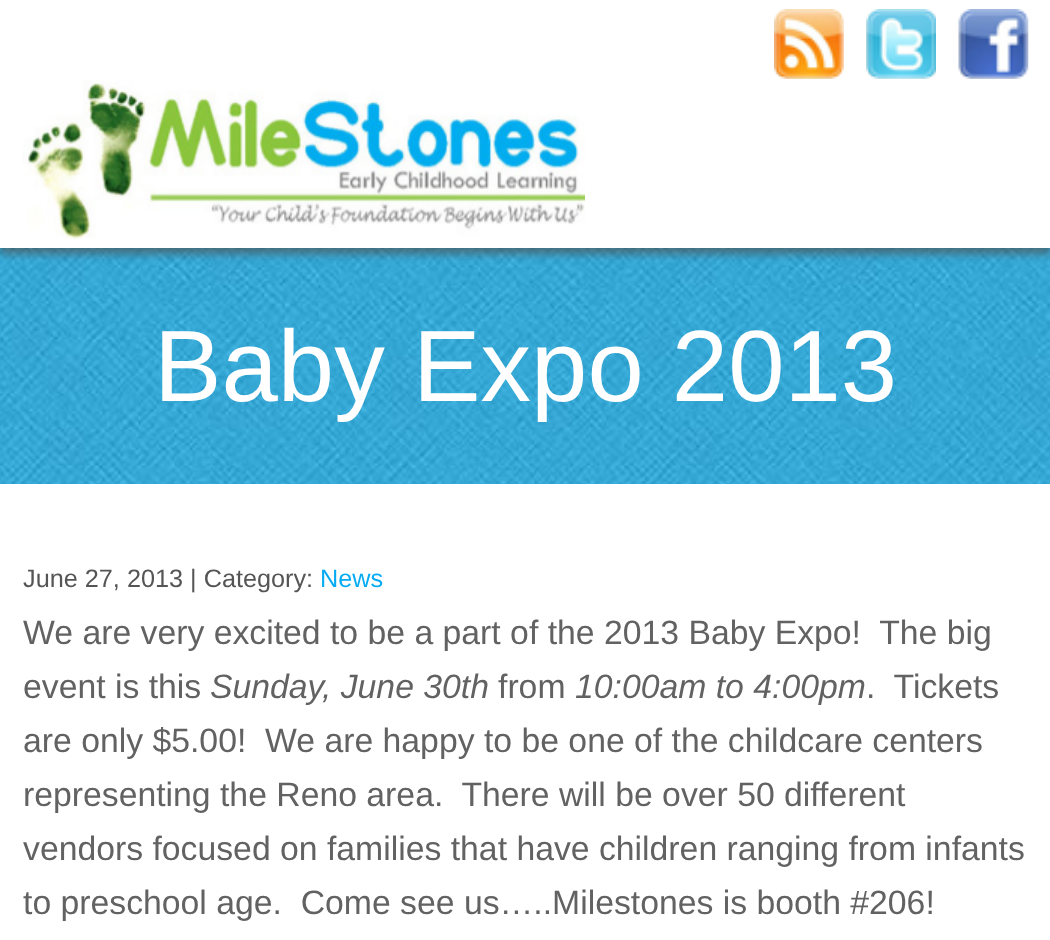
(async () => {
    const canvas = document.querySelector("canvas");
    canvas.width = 1050;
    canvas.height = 940;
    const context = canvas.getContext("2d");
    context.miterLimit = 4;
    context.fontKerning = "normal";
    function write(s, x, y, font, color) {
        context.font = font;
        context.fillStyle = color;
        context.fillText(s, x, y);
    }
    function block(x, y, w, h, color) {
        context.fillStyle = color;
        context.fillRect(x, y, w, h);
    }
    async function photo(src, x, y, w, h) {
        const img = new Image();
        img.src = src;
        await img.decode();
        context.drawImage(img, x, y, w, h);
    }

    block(0, 0, 1050, 940, "rgb(255, 255, 255)");
    await photo("media/1.png", 0, 248, 1050, 236);
    context.fillStyle = "rgba(78, 78, 78, 0.65)";
    context.filter = "blur(4.5px)";
    context.beginPath();
    context.rect(0, 7, 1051, 247);
    context.fill();
    context.filter = "none";
    block(0, 0, 1050, 248, "rgb(255, 255, 255)");
    await photo("media/2.png", 774, 9, 70, 70);
    await photo("media/3.png", 866, 9, 70, 70);
    await photo("media/4.png", 958, 9, 71, 70);
    await photo("media/5.png", 22, 79, 563, 160);
    write("Baby Expo 2013", 154, 401, "101.25px Liberation Sans", "rgb(255, 255, 255)");
    write("June 27, 2013 | Category:", 23, 587, "25.25px Liberation Sans", "rgb(85, 85, 85)");
    write("News", 320, 587, "25.25px Liberation Sans", "rgb(6, 171, 243)");
    write("We are very excited to be a part of the 2013 Baby Expo!  The big", 23, 644, "33.75px Liberation Sans", "rgb(98, 98, 98)");
    write("event is this", 23, 698, "33.75px Liberation Sans", "rgb(98, 98, 98)");
    write("Sunday, June 30th", 210, 698, "italic 33.75px Liberation Sans", "rgb(98, 98, 98)");
    write("from", 498, 698, "33.75px Liberation Sans", "rgb(98, 98, 98)");
    write("10:00am to 4:00pm", 575, 698, "italic 33.75px Liberation Sans", "rgb(98, 98, 98)");
    write(".  Tickets", 866, 698, "33.75px Liberation Sans", "rgb(98, 98, 98)");
    write("are only $5.00!  We are happy to be one of the childcare centers", 23, 752, "33.75px Liberation Sans", "rgb(98, 98, 98)");
    write("representing the Reno area.  There will be over 50 different", 23, 806, "33.75px Liberation Sans", "rgb(98, 98, 98)");
    write("vendors focused on families that have children ranging from infants", 23, 860, "33.75px Liberation Sans", "rgb(98, 98, 98)");
    write("to preschool age.  Come see us…..Milestones is booth #206!", 23, 914, "33.75px Liberation Sans", "rgb(98, 98, 98)");
})();
